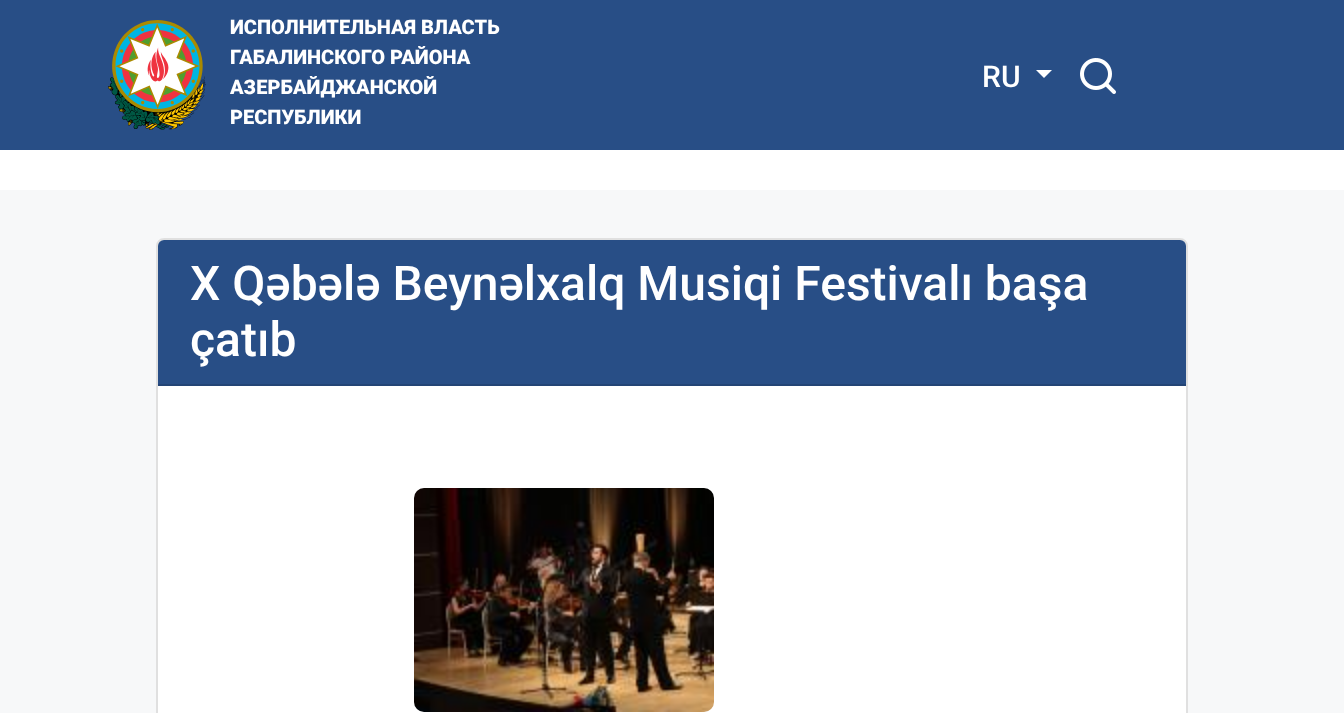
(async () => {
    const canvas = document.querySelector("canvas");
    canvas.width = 1344;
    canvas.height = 713;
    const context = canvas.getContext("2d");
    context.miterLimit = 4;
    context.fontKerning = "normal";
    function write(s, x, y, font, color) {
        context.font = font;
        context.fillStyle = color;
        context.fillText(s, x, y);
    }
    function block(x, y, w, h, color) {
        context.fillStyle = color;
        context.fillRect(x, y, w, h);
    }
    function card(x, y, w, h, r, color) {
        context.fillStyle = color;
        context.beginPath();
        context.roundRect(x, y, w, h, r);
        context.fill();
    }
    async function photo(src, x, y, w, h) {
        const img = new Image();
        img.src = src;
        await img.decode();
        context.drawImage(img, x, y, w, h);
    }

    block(0, 0, 1344, 713, "rgb(247, 248, 249)");
    block(0, 0, 1344, 150, "rgb(40, 78, 134)");
    await photo("media/1.png", 108, 20, 98, 110);
    write("ИСПОЛНИТЕЛЬНАЯ ВЛАСТЬ", 230, 34, "900 20px Roboto", "rgb(255, 255, 255)");
    write("ГАБАЛИНСКОГО РАЙОНА", 230, 64, "900 20px Roboto", "rgb(255, 255, 255)");
    write("АЗЕРБАЙДЖАНСКОЙ", 230, 94, "900 20px Roboto", "rgb(255, 255, 255)");
    write("РЕСПУБЛИКИ", 230, 124, "900 20px Roboto", "rgb(255, 255, 255)");
    write("RU", 982, 87, "500 30px Roboto", "rgb(255, 255, 255)");
    context.beginPath();
    context.moveTo(1036, 70);
    context.lineTo(1052, 70);
    context.lineTo(1044, 78);
    context.closePath();
    context.fill();
    await photo("media/2.png", 1080, 58, 36, 36);
    block(0, 150, 1344, 40, "rgb(255, 255, 255)");
    card(156, 238, 1032, 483, 8, "rgb(255, 255, 255)");
    context.beginPath();
    context.roundRect(157, 239, 1030, 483, 7);
    context.strokeStyle = "rgba(0, 0, 0, 0.12)";
    context.lineWidth = 2;
    context.stroke();
    context.fillStyle = "rgb(40, 78, 134)";
    context.beginPath();
    context.roundRect(158, 240, 1028, 146, [6, 6, 0, 0]);
    context.fill();
    block(158, 384, 1028, 2, "rgb(35, 68, 117)");
    write("X Qəbələ Beynəlxalq Musiqi Festivalı başa", 190, 300, "500 48px Roboto", "rgb(255, 255, 255)");
    write("çatıb", 190, 356, "500 48px Roboto", "rgb(255, 255, 255)");
    await photo("media/3.png", 414, 488, 300, 224);
})();
